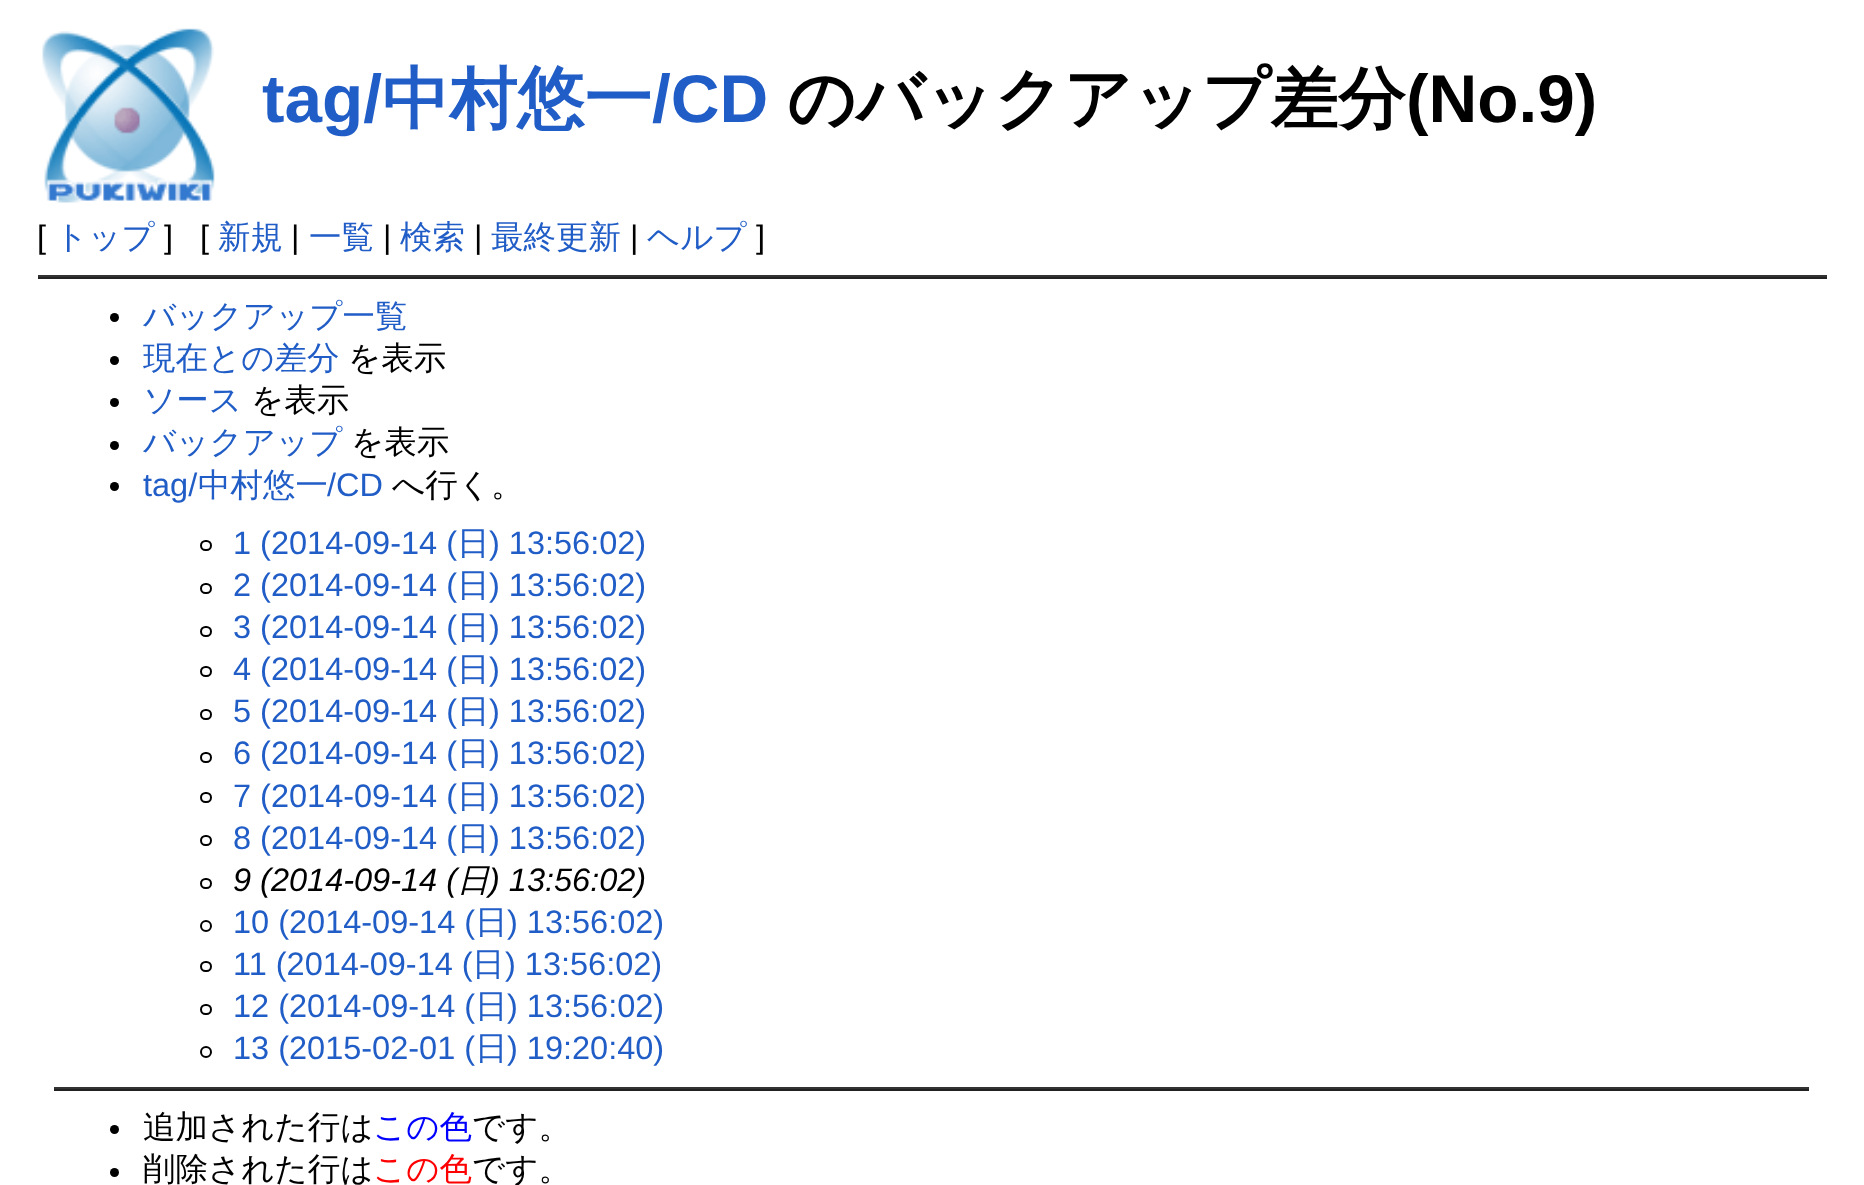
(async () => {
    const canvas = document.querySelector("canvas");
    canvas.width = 1864;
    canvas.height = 1185;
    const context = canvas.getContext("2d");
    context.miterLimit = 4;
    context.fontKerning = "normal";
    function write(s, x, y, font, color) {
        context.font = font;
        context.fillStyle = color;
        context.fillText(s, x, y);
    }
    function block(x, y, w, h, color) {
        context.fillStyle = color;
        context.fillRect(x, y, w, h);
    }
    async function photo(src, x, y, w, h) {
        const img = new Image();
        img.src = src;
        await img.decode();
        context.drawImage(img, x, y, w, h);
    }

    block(0, 0, 1864, 1185, "rgb(255, 255, 255)");
    await photo("media/1.png", 42, 28, 173, 175);
    write("tag/", 262, 122, "bold 67.5px Liberation Sans", "rgb(33, 93, 198)");
    write("中村悠一", 382, 122, "bold 67.5px WenQuanYi Zen Hei", "rgb(33, 93, 198)");
    write("/CD", 652, 122, "bold 67.5px Liberation Sans", "rgb(33, 93, 198)");
    write("のバックアップ差分", 787, 122, "bold 67.5px WenQuanYi Zen Hei", "rgb(0, 0, 0)");
    write("(No.9)", 1406, 122, "bold 67.5px Liberation Sans", "rgb(0, 0, 0)");
    write("[", 37, 248, "32.5px Liberation Sans", "rgb(0, 0, 0)");
    write("トップ", 55, 248, "500 32.5px WenQuanYi Zen Hei", "rgb(33, 93, 198)");
    write("]", 164, 248, "32.5px Liberation Sans", "rgb(0, 0, 0)");
    write("[", 200, 248, "32.5px Liberation Sans", "rgb(0, 0, 0)");
    write("新規", 218, 248, "500 32.5px WenQuanYi Zen Hei", "rgb(33, 93, 198)");
    write("|", 291, 248, "32.5px Liberation Sans", "rgb(0, 0, 0)");
    write("一覧", 309, 248, "500 32.5px WenQuanYi Zen Hei", "rgb(33, 93, 198)");
    write("|", 383, 248, "32.5px Liberation Sans", "rgb(0, 0, 0)");
    write("検索", 400, 248, "500 32.5px WenQuanYi Zen Hei", "rgb(33, 93, 198)");
    write("|", 474, 248, "32.5px Liberation Sans", "rgb(0, 0, 0)");
    write("最終更新", 491, 248, "500 32.5px WenQuanYi Zen Hei", "rgb(33, 93, 198)");
    write("|", 630, 248, "32.5px Liberation Sans", "rgb(0, 0, 0)");
    write("ヘルプ", 647, 248, "500 32.5px WenQuanYi Zen Hei", "rgb(33, 93, 198)");
    write("]", 756, 248, "32.5px Liberation Sans", "rgb(0, 0, 0)");
    block(38, 275, 1789, 2, "rgb(51, 51, 51)");
    block(38, 277, 1789, 2, "rgb(34, 34, 34)");
    context.fillStyle = "rgb(0, 0, 0)";
    context.beginPath();
    context.arc(114.5, 317.5, 4.5, 0, Math.PI * 2);
    context.fill();
    write("バックアップ一覧", 143, 327, "500 32.5px WenQuanYi Zen Hei", "rgb(33, 93, 198)");
    context.fillStyle = "rgb(0, 0, 0)";
    context.beginPath();
    context.arc(114.5, 360.5, 4.5, 0, Math.PI * 2);
    context.fill();
    write("現在との差分", 143, 369, "500 32.5px WenQuanYi Zen Hei", "rgb(33, 93, 198)");
    write("を表示", 348, 369, "500 32.5px WenQuanYi Zen Hei", "rgb(0, 0, 0)");
    context.beginPath();
    context.arc(114.5, 402.5, 4.5, 0, Math.PI * 2);
    context.fill();
    write("ソース", 143, 411, "500 32.5px WenQuanYi Zen Hei", "rgb(33, 93, 198)");
    write("を表示", 251, 411, "500 32.5px WenQuanYi Zen Hei", "rgb(0, 0, 0)");
    context.beginPath();
    context.arc(114.5, 445.5, 4.5, 0, Math.PI * 2);
    context.fill();
    write("バックアップ", 143, 453, "500 32.5px WenQuanYi Zen Hei", "rgb(33, 93, 198)");
    write("を表示", 351, 453, "500 32.5px WenQuanYi Zen Hei", "rgb(0, 0, 0)");
    context.beginPath();
    context.arc(114.5, 486.5, 4.5, 0, Math.PI * 2);
    context.fill();
    write("tag/", 143, 496, "32.5px Liberation Sans", "rgb(33, 93, 198)");
    write("中村悠一", 198, 496, "500 32.5px WenQuanYi Zen Hei", "rgb(33, 93, 198)");
    write("/CD", 327, 496, "32.5px Liberation Sans", "rgb(33, 93, 198)");
    write("へ行く。", 392, 496, "500 32.5px WenQuanYi Zen Hei", "rgb(0, 0, 0)");
    context.beginPath();
    context.roundRect(201, 541, 10, 9, 4.5);
    context.strokeStyle = "rgb(0, 0, 0)";
    context.lineWidth = 2;
    context.stroke();
    write("1 (2014-09-14 (", 233, 554, "32.5px Liberation Sans", "rgb(33, 93, 198)");
    write("日", 457, 554, "500 32.5px WenQuanYi Zen Hei", "rgb(33, 93, 198)");
    write(") 13:56:02)", 489, 554, "32.5px Liberation Sans", "rgb(33, 93, 198)");
    context.beginPath();
    context.roundRect(201, 584, 10, 9, 4.5);
    context.stroke();
    write("2 (2014-09-14 (", 233, 596, "32.5px Liberation Sans", "rgb(33, 93, 198)");
    write("日", 457, 596, "500 32.5px WenQuanYi Zen Hei", "rgb(33, 93, 198)");
    write(") 13:56:02)", 489, 596, "32.5px Liberation Sans", "rgb(33, 93, 198)");
    context.beginPath();
    context.roundRect(201, 627, 10, 9, 4.5);
    context.stroke();
    write("3 (2014-09-14 (", 233, 638, "32.5px Liberation Sans", "rgb(33, 93, 198)");
    write("日", 457, 638, "500 32.5px WenQuanYi Zen Hei", "rgb(33, 93, 198)");
    write(") 13:56:02)", 489, 638, "32.5px Liberation Sans", "rgb(33, 93, 198)");
    context.beginPath();
    context.roundRect(201, 667, 10, 9, 4.5);
    context.stroke();
    write("4 (2014-09-14 (", 233, 680, "32.5px Liberation Sans", "rgb(33, 93, 198)");
    write("日", 457, 680, "500 32.5px WenQuanYi Zen Hei", "rgb(33, 93, 198)");
    write(") 13:56:02)", 489, 680, "32.5px Liberation Sans", "rgb(33, 93, 198)");
    context.beginPath();
    context.roundRect(201, 710, 10, 9, 4.5);
    context.stroke();
    write("5 (2014-09-14 (", 233, 722, "32.5px Liberation Sans", "rgb(33, 93, 198)");
    write("日", 457, 722, "500 32.5px WenQuanYi Zen Hei", "rgb(33, 93, 198)");
    write(") 13:56:02)", 489, 722, "32.5px Liberation Sans", "rgb(33, 93, 198)");
    context.beginPath();
    context.roundRect(201, 753, 10, 9, 4.5);
    context.stroke();
    write("6 (2014-09-14 (", 233, 764, "32.5px Liberation Sans", "rgb(33, 93, 198)");
    write("日", 457, 764, "500 32.5px WenQuanYi Zen Hei", "rgb(33, 93, 198)");
    write(") 13:56:02)", 489, 764, "32.5px Liberation Sans", "rgb(33, 93, 198)");
    context.beginPath();
    context.roundRect(201, 793, 10, 9, 4.5);
    context.stroke();
    write("7 (2014-09-14 (", 233, 807, "32.5px Liberation Sans", "rgb(33, 93, 198)");
    write("日", 457, 807, "500 32.5px WenQuanYi Zen Hei", "rgb(33, 93, 198)");
    write(") 13:56:02)", 489, 807, "32.5px Liberation Sans", "rgb(33, 93, 198)");
    context.beginPath();
    context.roundRect(201, 836, 10, 9, 4.5);
    context.stroke();
    write("8 (2014-09-14 (", 233, 849, "32.5px Liberation Sans", "rgb(33, 93, 198)");
    write("日", 457, 849, "500 32.5px WenQuanYi Zen Hei", "rgb(33, 93, 198)");
    write(") 13:56:02)", 489, 849, "32.5px Liberation Sans", "rgb(33, 93, 198)");
    context.beginPath();
    context.roundRect(201, 879, 10, 9, 4.5);
    context.stroke();
    write("9 (2014-09-14 (", 233, 891, "italic 32.5px Liberation Sans", "rgb(0, 0, 0)");
    write("日", 457, 891, "italic 500 32.5px WenQuanYi Zen Hei", "rgb(0, 0, 0)");
    write(") 13:56:02)", 489, 891, "italic 32.5px Liberation Sans", "rgb(0, 0, 0)");
    context.beginPath();
    context.arc(206, 926, 5, 0, Math.PI * 2);
    context.stroke();
    write("10 (2014-09-14 (", 233, 933, "32.5px Liberation Sans", "rgb(33, 93, 198)");
    write("日", 475, 933, "500 32.5px WenQuanYi Zen Hei", "rgb(33, 93, 198)");
    write(") 13:56:02)", 507, 933, "32.5px Liberation Sans", "rgb(33, 93, 198)");
    context.beginPath();
    context.roundRect(201, 962, 10, 9, 4.5);
    context.stroke();
    write("11 (2014-09-14 (", 233, 975, "32.5px Liberation Sans", "rgb(33, 93, 198)");
    write("日", 472, 975, "500 32.5px WenQuanYi Zen Hei", "rgb(33, 93, 198)");
    write(") 13:56:02)", 505, 975, "32.5px Liberation Sans", "rgb(33, 93, 198)");
    context.beginPath();
    context.roundRect(201, 1005, 10, 9, 4.5);
    context.stroke();
    write("12 (2014-09-14 (", 233, 1017, "32.5px Liberation Sans", "rgb(33, 93, 198)");
    write("日", 475, 1017, "500 32.5px WenQuanYi Zen Hei", "rgb(33, 93, 198)");
    write(") 13:56:02)", 507, 1017, "32.5px Liberation Sans", "rgb(33, 93, 198)");
    context.beginPath();
    context.arc(206, 1052, 5, 0, Math.PI * 2);
    context.stroke();
    write("13 (2015-02-01 (", 233, 1059, "32.5px Liberation Sans", "rgb(33, 93, 198)");
    write("日", 475, 1059, "500 32.5px WenQuanYi Zen Hei", "rgb(33, 93, 198)");
    write(") 19:20:40)", 507, 1059, "32.5px Liberation Sans", "rgb(33, 93, 198)");
    block(54, 1087, 1755, 2, "rgb(51, 51, 51)");
    block(54, 1089, 1755, 2, "rgb(34, 34, 34)");
    context.fillStyle = "rgb(0, 0, 0)";
    context.beginPath();
    context.arc(114.5, 1129.5, 4.5, 0, Math.PI * 2);
    context.fill();
    write("追加された行は", 143, 1138, "500 32.5px WenQuanYi Zen Hei", "rgb(0, 0, 0)");
    write("この色", 373, 1138, "500 32.5px WenQuanYi Zen Hei", "rgb(0, 0, 255)");
    write("です。", 472, 1138, "500 32.5px WenQuanYi Zen Hei", "rgb(0, 0, 0)");
    context.beginPath();
    context.arc(114.5, 1172.5, 4.5, 0, Math.PI * 2);
    context.fill();
    write("削除された行は", 143, 1180, "500 32.5px WenQuanYi Zen Hei", "rgb(0, 0, 0)");
    write("この色", 373, 1180, "500 32.5px WenQuanYi Zen Hei", "rgb(255, 0, 0)");
    write("です。", 472, 1180, "500 32.5px WenQuanYi Zen Hei", "rgb(0, 0, 0)");
})();
